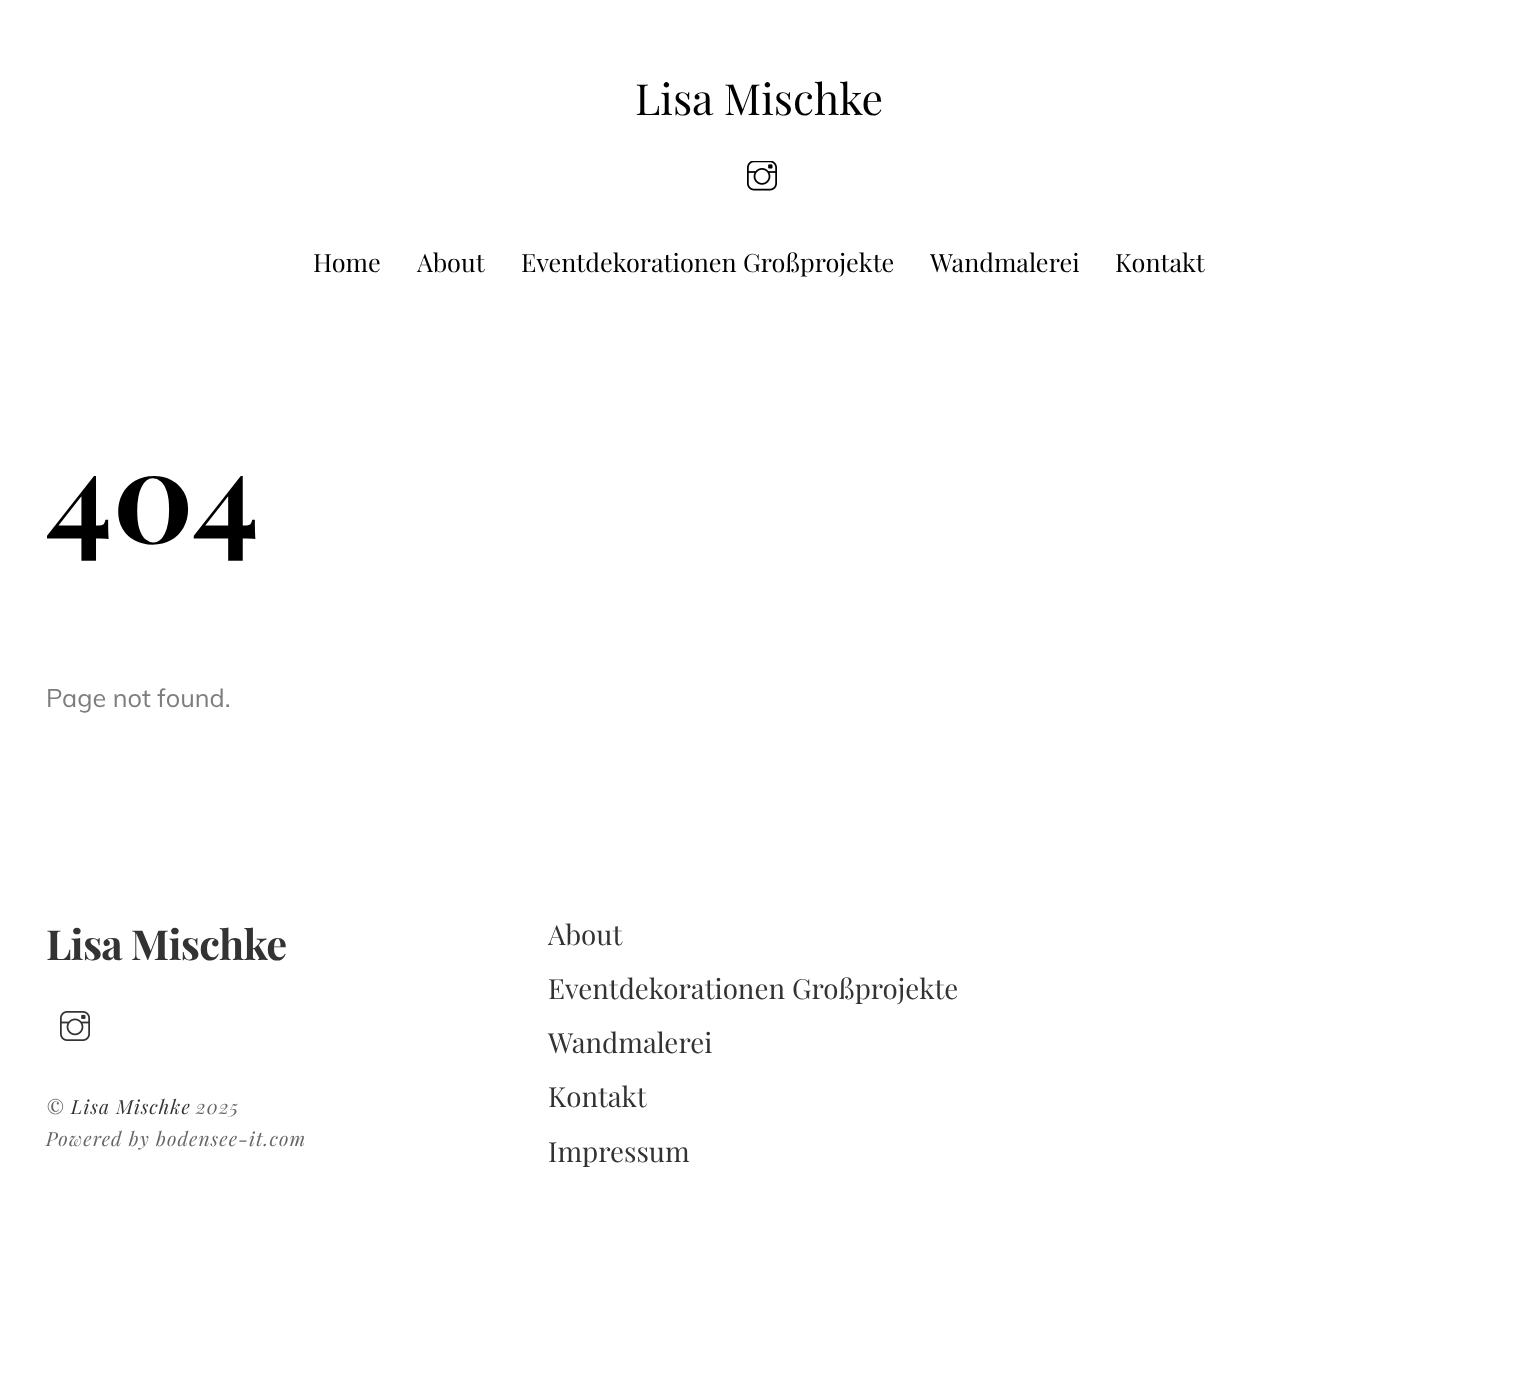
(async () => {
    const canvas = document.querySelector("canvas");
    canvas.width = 1518;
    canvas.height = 1387;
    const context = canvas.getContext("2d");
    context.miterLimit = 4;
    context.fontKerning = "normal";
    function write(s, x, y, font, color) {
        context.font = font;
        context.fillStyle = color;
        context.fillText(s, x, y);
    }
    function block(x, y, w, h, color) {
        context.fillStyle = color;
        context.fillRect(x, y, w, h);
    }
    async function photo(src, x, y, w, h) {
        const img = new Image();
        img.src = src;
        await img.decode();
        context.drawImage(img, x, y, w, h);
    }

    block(0, 0, 1518, 1387, "rgb(255, 255, 255)");
    write("Lisa Mischke", 635, 115, "43px Playfair Display", "rgb(0, 0, 0)");
    await photo("media/1.png", 747, 161, 30, 30);
    write("Home", 313, 272, "25.25px Playfair Display", "rgb(0, 0, 0)");
    write("About", 417, 272, "25.25px Playfair Display", "rgb(0, 0, 0)");
    write("Eventdekorationen Großprojekte", 521, 272, "25.25px Playfair Display", "rgb(0, 0, 0)");
    write("Wandmalerei", 930, 272, "25.25px Playfair Display", "rgb(0, 0, 0)");
    write("Kontakt", 1115, 272, "25.25px Playfair Display", "rgb(0, 0, 0)");
    write("404", 46, 543, "bold 126px Playfair Display", "rgb(0, 0, 0)");
    write("Page not found.", 46, 707, "25.25px Muli", "rgb(125, 125, 125)");
    context.letterSpacing = "-0.75px";
    write("Lisa Mischke", 46, 960, "bold 41.5px Playfair Display", "rgb(51, 51, 51)");
    await photo("media/2.png", 60, 1011, 30, 30);
    context.letterSpacing = "1.1px";
    write("©", 46, 1114, "italic 19.4px Playfair Display", "rgb(102, 102, 102)");
    write("Lisa Mischke", 71, 1114, "italic 19.4px Playfair Display", "rgb(51, 51, 51)");
    write("2025", 196, 1114, "italic 19.4px Playfair Display", "rgb(102, 102, 102)");
    write("Powered by bodensee-it.com", 46, 1146, "italic 19.4px Playfair Display", "rgb(102, 102, 102)");
    context.letterSpacing = "0px";
    write("About", 548, 945, "27.75px Playfair Display", "rgb(51, 51, 51)");
    write("Eventdekorationen Großprojekte", 548, 999, "27.75px Playfair Display", "rgb(51, 51, 51)");
    write("Wandmalerei", 548, 1053, "27.75px Playfair Display", "rgb(51, 51, 51)");
    write("Kontakt", 548, 1107, "27.75px Playfair Display", "rgb(51, 51, 51)");
    write("Impressum", 548, 1162, "27.75px Playfair Display", "rgb(51, 51, 51)");
})();
